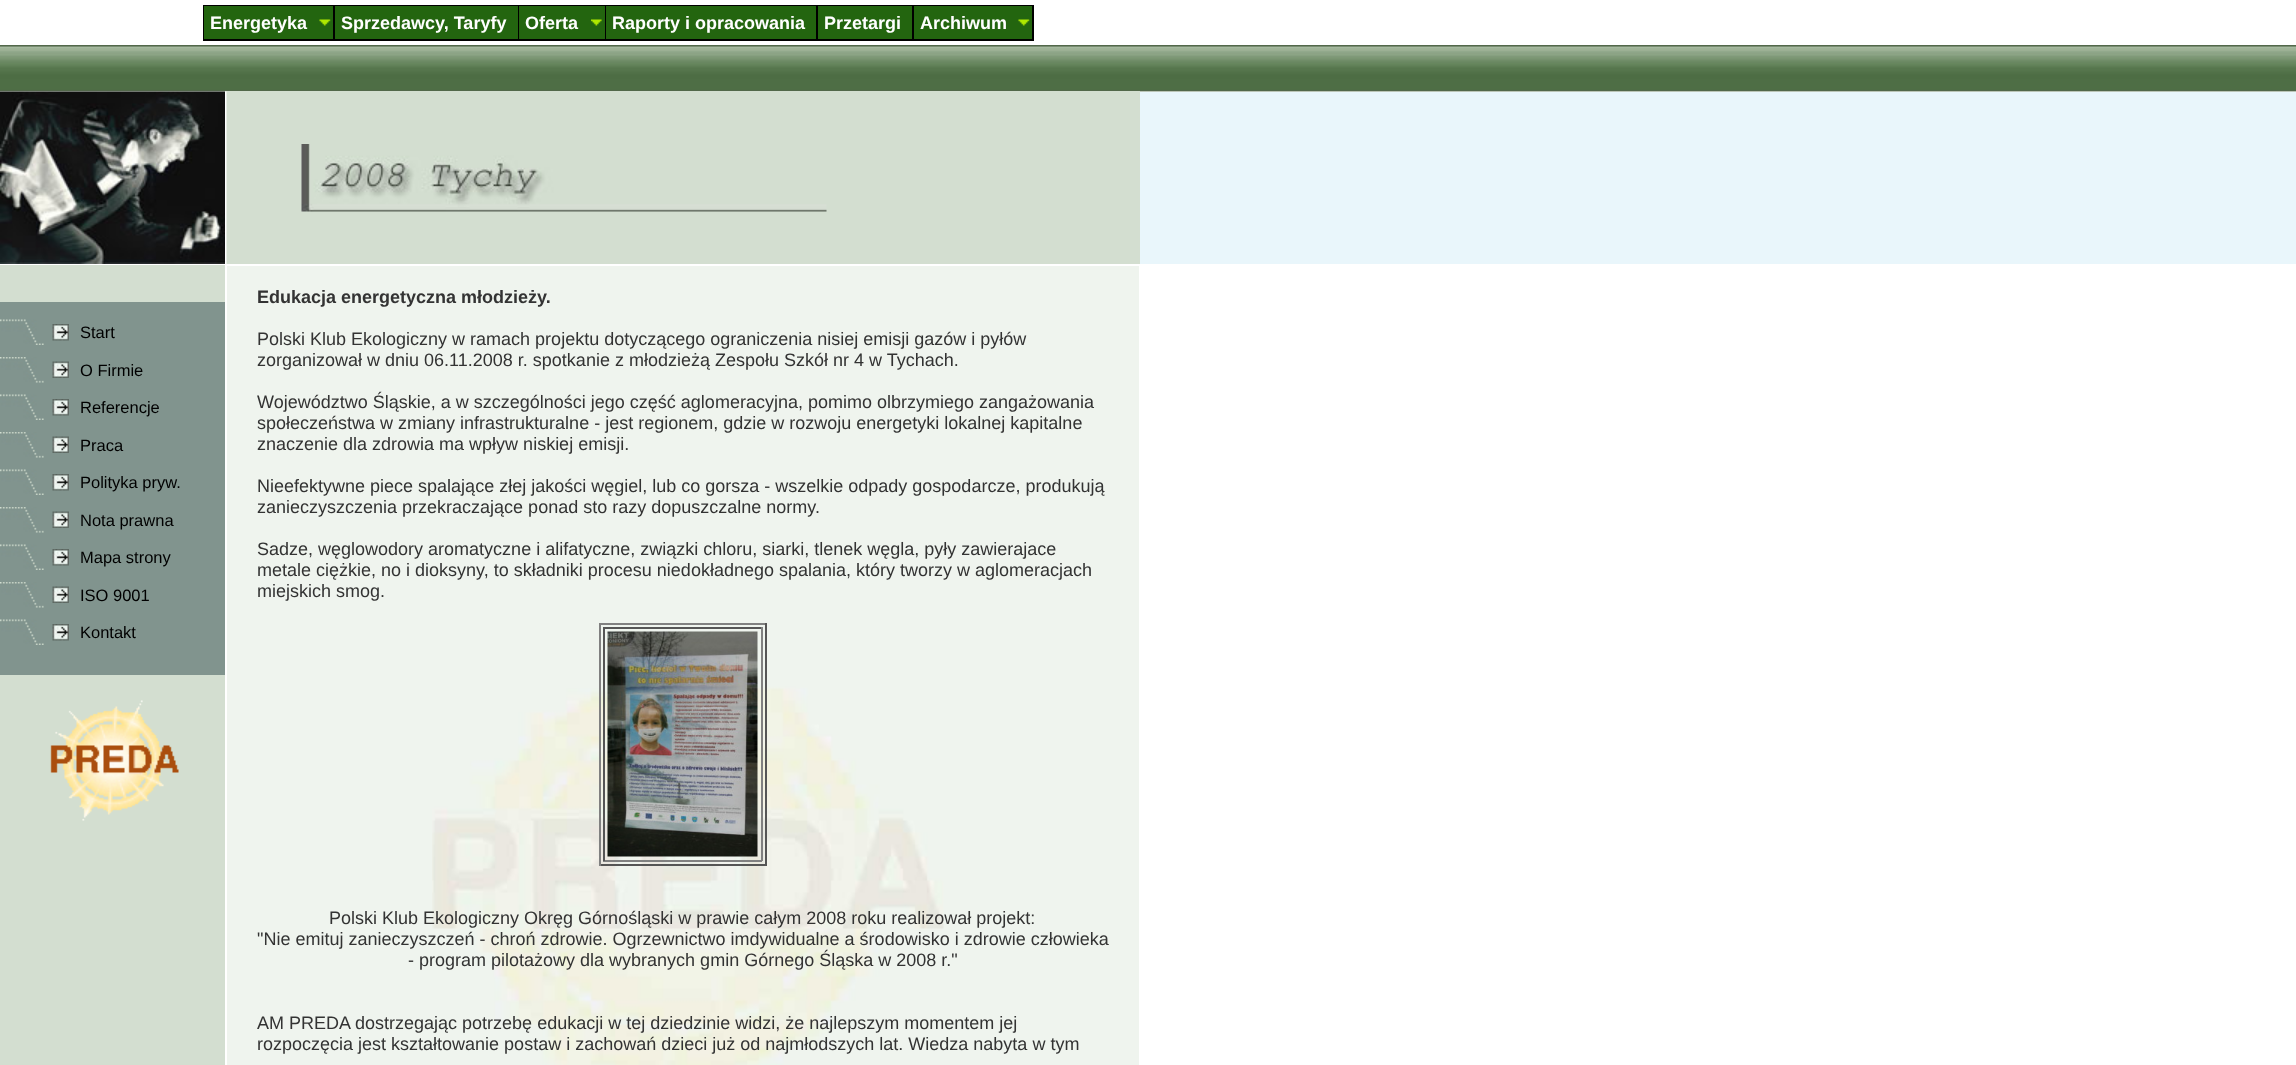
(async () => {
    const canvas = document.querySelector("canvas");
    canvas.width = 2296;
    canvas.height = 1065;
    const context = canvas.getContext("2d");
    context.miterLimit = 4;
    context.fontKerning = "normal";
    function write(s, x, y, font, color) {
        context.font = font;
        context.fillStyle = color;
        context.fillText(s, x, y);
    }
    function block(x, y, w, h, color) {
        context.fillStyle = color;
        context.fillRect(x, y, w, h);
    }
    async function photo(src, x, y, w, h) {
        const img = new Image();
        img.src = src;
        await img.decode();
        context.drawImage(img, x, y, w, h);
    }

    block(0, 0, 2296, 1065, "rgb(255, 255, 255)");
    block(203, 5, 831, 36, "rgb(0, 0, 0)");
    block(204, 6, 129, 33, "rgb(35, 101, 15)");
    write("Energetyka", 210, 29, "bold 18px Liberation Sans", "rgb(255, 255, 255)");
    await photo("media/1.png", 319, 19, 12, 7);
    block(335, 6, 183, 33, "rgb(35, 101, 15)");
    write("Sprzedawcy, Taryfy", 341, 29, "bold 18px Liberation Sans", "rgb(255, 255, 255)");
    block(519, 6, 86, 33, "rgb(35, 101, 15)");
    write("Oferta", 525, 29, "bold 18px Liberation Sans", "rgb(255, 255, 255)");
    await photo("media/2.png", 591, 19, 11, 7);
    block(606, 6, 210, 33, "rgb(35, 101, 15)");
    write("Raporty i opracowania", 612, 29, "bold 18px Liberation Sans", "rgb(255, 255, 255)");
    block(818, 6, 94, 33, "rgb(35, 101, 15)");
    write("Przetargi", 824, 29, "bold 18px Liberation Sans", "rgb(255, 255, 255)");
    block(914, 6, 118, 33, "rgb(35, 101, 15)");
    write("Archiwum", 920, 29, "bold 18px Liberation Sans", "rgb(255, 255, 255)");
    await photo("media/1.png", 1018, 19, 12, 7);
    await photo("media/3.png", 0, 45, 1140, 46);
    block(0, 91, 1140, 173, "rgb(211, 222, 208)");
    await photo("media/4.png", 0, 91, 225, 173);
    await photo("media/5.png", 225, 91, 2, 173);
    await photo("media/6.png", 301, 144, 526, 68);
    await photo("media/7.png", 1140, 45, 1156, 47);
    block(1140, 92, 1156, 172, "rgb(233, 246, 251)");
    block(0, 265, 225, 800, "rgb(211, 222, 208)");
    block(0, 302, 225, 373, "rgb(129, 148, 142)");
    await photo("media/8.png", 0, 319, 44, 26);
    await photo("media/9.png", 52, 324, 17, 17);
    write("Start", 80, 338, "16.5px Liberation Sans", "rgb(0, 0, 0)");
    await photo("media/10.png", 0, 357, 44, 26);
    await photo("media/11.png", 52, 361, 17, 17);
    write("O Firmie", 80, 376, "16.5px Liberation Sans", "rgb(0, 0, 0)");
    await photo("media/8.png", 0, 394, 44, 26);
    await photo("media/9.png", 52, 399, 17, 17);
    write("Referencje", 80, 413, "16.5px Liberation Sans", "rgb(0, 0, 0)");
    await photo("media/10.png", 0, 432, 44, 26);
    await photo("media/11.png", 52, 436, 17, 17);
    write("Praca", 80, 451, "16.5px Liberation Sans", "rgb(0, 0, 0)");
    await photo("media/8.png", 0, 469, 44, 26);
    await photo("media/9.png", 52, 474, 17, 17);
    write("Polityka pryw.", 80, 488, "16.5px Liberation Sans", "rgb(0, 0, 0)");
    await photo("media/10.png", 0, 507, 44, 26);
    await photo("media/11.png", 52, 511, 17, 17);
    write("Nota prawna", 80, 526, "16.5px Liberation Sans", "rgb(0, 0, 0)");
    await photo("media/8.png", 0, 544, 44, 26);
    await photo("media/9.png", 52, 549, 17, 17);
    write("Mapa strony", 80, 563, "16.5px Liberation Sans", "rgb(0, 0, 0)");
    await photo("media/10.png", 0, 582, 44, 26);
    await photo("media/11.png", 52, 586, 17, 17);
    write("ISO 9001", 80, 601, "16.5px Liberation Sans", "rgb(0, 0, 0)");
    await photo("media/8.png", 0, 619, 44, 26);
    await photo("media/9.png", 52, 624, 17, 17);
    write("Kontakt", 80, 638, "16.5px Liberation Sans", "rgb(0, 0, 0)");
    await photo("media/12.png", 50, 700, 129, 121);
    block(227, 266, 912, 799, "rgb(239, 244, 238)");
    await photo("media/13.png", 432, 665, 512, 400);
    write("Edukacja energetyczna młodzieży.", 257, 303, "bold 18px Liberation Sans", "rgb(51, 51, 51)");
    write("Polski Klub Ekologiczny w ramach projektu dotyczącego ograniczenia nisiej emisji gazów i pyłów", 257, 345, "18px Liberation Sans", "rgb(51, 51, 51)");
    write("zorganizował w dniu 06.11.2008 r. spotkanie z młodzieżą Zespołu Szkół nr 4 w Tychach.", 257, 366, "18px Liberation Sans", "rgb(51, 51, 51)");
    write("Województwo Śląskie, a w szczególności jego część aglomeracyjna, pomimo olbrzymiego zangażowania", 257, 408, "18px Liberation Sans", "rgb(51, 51, 51)");
    write("społeczeństwa w zmiany infrastrukturalne - jest regionem, gdzie w rozwoju energetyki lokalnej kapitalne", 257, 429, "18px Liberation Sans", "rgb(51, 51, 51)");
    write("znaczenie dla zdrowia ma wpływ niskiej emisji.", 257, 450, "18px Liberation Sans", "rgb(51, 51, 51)");
    write("Nieefektywne piece spalające złej jakości węgiel, lub co gorsza - wszelkie odpady gospodarcze, produkują", 257, 492, "18px Liberation Sans", "rgb(51, 51, 51)");
    write("zanieczyszczenia przekraczające ponad sto razy dopuszczalne normy.", 257, 513, "18px Liberation Sans", "rgb(51, 51, 51)");
    write("Sadze, węglowodory aromatyczne i alifatyczne, związki chloru, siarki, tlenek węgla, pyły zawierajace", 257, 555, "18px Liberation Sans", "rgb(51, 51, 51)");
    write("metale ciężkie, no i dioksyny, to składniki procesu niedokładnego spalania, który tworzy w aglomeracjach", 257, 576, "18px Liberation Sans", "rgb(51, 51, 51)");
    write("miejskich smog.", 257, 597, "18px Liberation Sans", "rgb(51, 51, 51)");
    block(599, 623, 168, 2, "rgb(128, 128, 128)");
    block(765, 623, 2, 243, "rgb(85, 85, 85)");
    block(599, 864, 168, 2, "rgb(85, 85, 85)");
    block(599, 623, 2, 243, "rgb(128, 128, 128)");
    block(603, 627, 159, 2, "rgb(85, 85, 85)");
    block(761, 627, 2, 234, "rgb(128, 128, 128)");
    block(603, 860, 159, 2, "rgb(128, 128, 128)");
    block(603, 627, 2, 234, "rgb(85, 85, 85)");
    await photo("media/14.png", 607, 631, 151, 226);
    write("Polski Klub Ekologiczny Okręg Górnośląski w prawie całym 2008 roku realizował projekt:", 329, 924, "18px Liberation Sans", "rgb(51, 51, 51)");
    write("\"Nie emituj zanieczyszczeń - chroń zdrowie. Ogrzewnictwo imdywidualne a środowisko i zdrowie człowieka", 257, 945, "18px Liberation Sans", "rgb(51, 51, 51)");
    write("- program pilotażowy dla wybranych gmin Górnego Śląska w 2008 r.\"", 408, 966, "18px Liberation Sans", "rgb(51, 51, 51)");
    write("AM PREDA dostrzegając potrzebę edukacji w tej dziedzinie widzi, że najlepszym momentem jej", 257, 1029, "18px Liberation Sans", "rgb(51, 51, 51)");
    write("rozpoczęcia jest kształtowanie postaw i zachowań dzieci już od najmłodszych lat. Wiedza nabyta w tym", 257, 1050, "18px Liberation Sans", "rgb(51, 51, 51)");
})();
